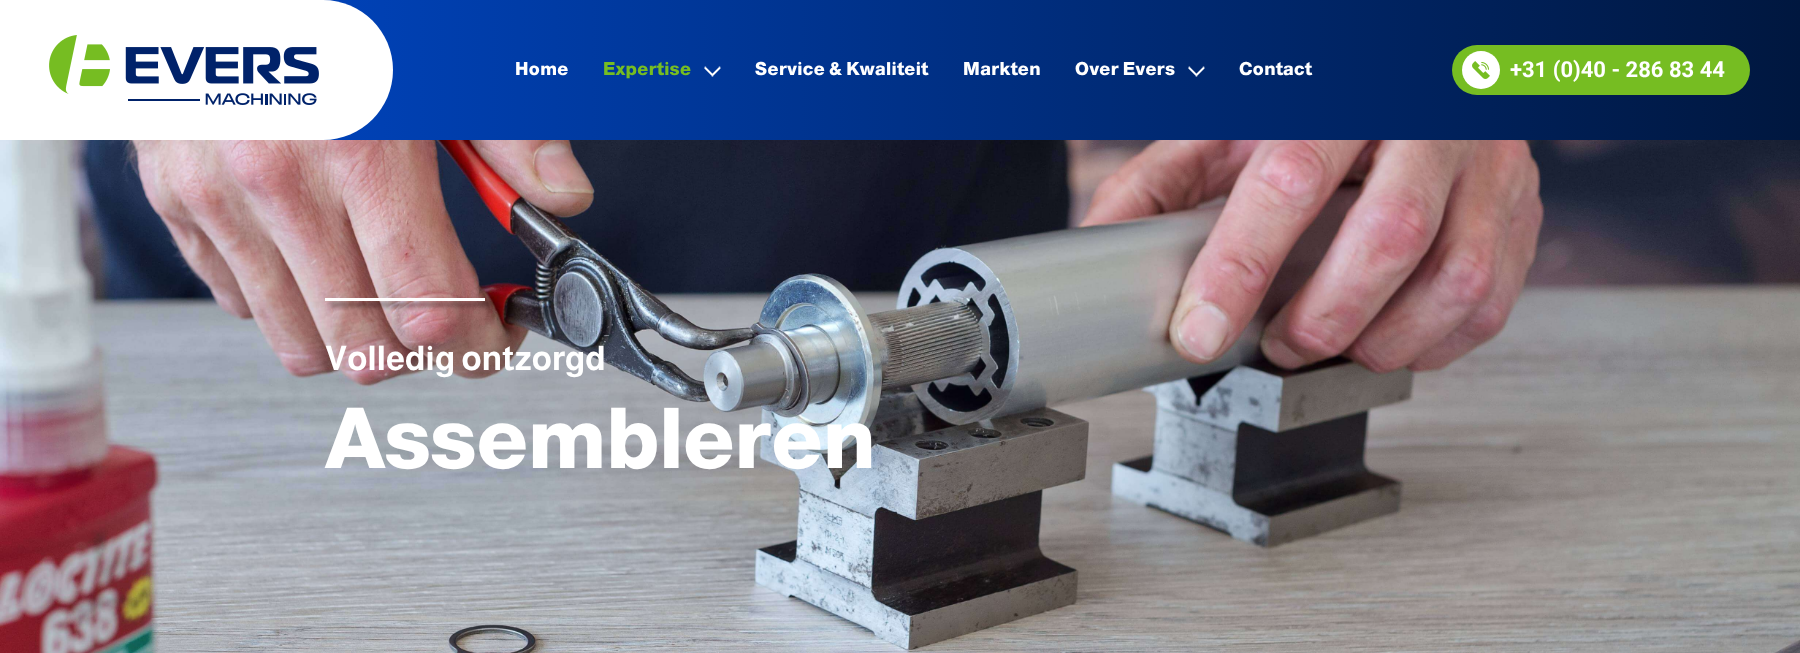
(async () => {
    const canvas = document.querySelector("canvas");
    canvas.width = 1800;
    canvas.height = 653;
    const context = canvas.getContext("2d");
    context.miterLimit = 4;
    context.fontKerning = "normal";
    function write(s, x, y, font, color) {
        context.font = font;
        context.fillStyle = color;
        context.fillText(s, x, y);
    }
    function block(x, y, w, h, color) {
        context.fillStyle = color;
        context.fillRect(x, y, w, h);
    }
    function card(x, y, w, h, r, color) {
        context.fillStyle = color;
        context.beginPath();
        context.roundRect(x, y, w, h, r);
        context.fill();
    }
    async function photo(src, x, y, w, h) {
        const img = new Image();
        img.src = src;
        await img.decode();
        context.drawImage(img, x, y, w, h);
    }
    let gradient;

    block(0, 0, 1800, 653, "rgb(255, 255, 255)");
    gradient = context.createLinearGradient(0, 70, 1800, 70);
    gradient.addColorStop(0, "rgb(0, 75, 209)");
    gradient.addColorStop(1, "rgb(0, 23, 63)");
    context.fillStyle = gradient;
    context.fillRect(324, 0, 1476, 140);
    context.fillStyle = "rgb(255, 255, 255)";
    context.beginPath();
    context.moveTo(-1, 0);
    context.lineTo(323, 0);
    context.bezierCurveTo(361.5, 0, 393, 31.5, 393, 70);
    context.bezierCurveTo(393, 108.5, 361.5, 140, 323, 140);
    context.lineTo(-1, 140);
    context.closePath();
    context.fill();
    await photo("media/1.png", 49, 35, 270, 70);
    context.letterSpacing = "0.4px";
    write("Home", 515, 75, "800 18px Almarai", "rgb(255, 255, 255)");
    await photo("media/2.png", 704, 66, 17, 11);
    write("Expertise", 603, 75, "800 18px Almarai", "rgb(118, 189, 34)");
    write("Service & Kwaliteit", 755, 75, "800 18px Almarai", "rgb(255, 255, 255)");
    write("Markten", 963, 75, "800 18px Almarai", "rgb(255, 255, 255)");
    await photo("media/3.png", 1188, 66, 17, 11);
    write("Over Evers", 1075, 75, "800 18px Almarai", "rgb(255, 255, 255)");
    write("Contact", 1239, 75, "800 18px Almarai", "rgb(255, 255, 255)");
    card(1452, 45, 298, 50, 25, "rgb(118, 189, 34)");
    context.fillStyle = "rgb(255, 255, 255)";
    context.beginPath();
    context.arc(1481, 70, 19, 0, Math.PI * 2);
    context.fill();
    await photo("media/4.png", 1472, 61, 18, 18);
    context.letterSpacing = "0px";
    write("+31 (0)40 - 286 83 44", 1510, 77, "bold 22px Roboto", "rgb(255, 255, 255)");
    await photo("media/5.png", 0, 140, 1800, 513);
    context.fillStyle = "rgba(0, 0, 0, 0.5)";
    context.filter = "blur(2.5px)";
    context.beginPath();
    context.rect(330, 303, 160, 3);
    context.fill();
    context.filter = "none";
    block(325, 298, 160, 3, "rgb(255, 255, 255)");
    write("Volledig ontzorgd", 325, 370, "bold 34px Almarai", "rgb(255, 255, 255)");
    write("Assembleren", 325, 468, "800 84px Almarai", "rgb(255, 255, 255)");
})();
